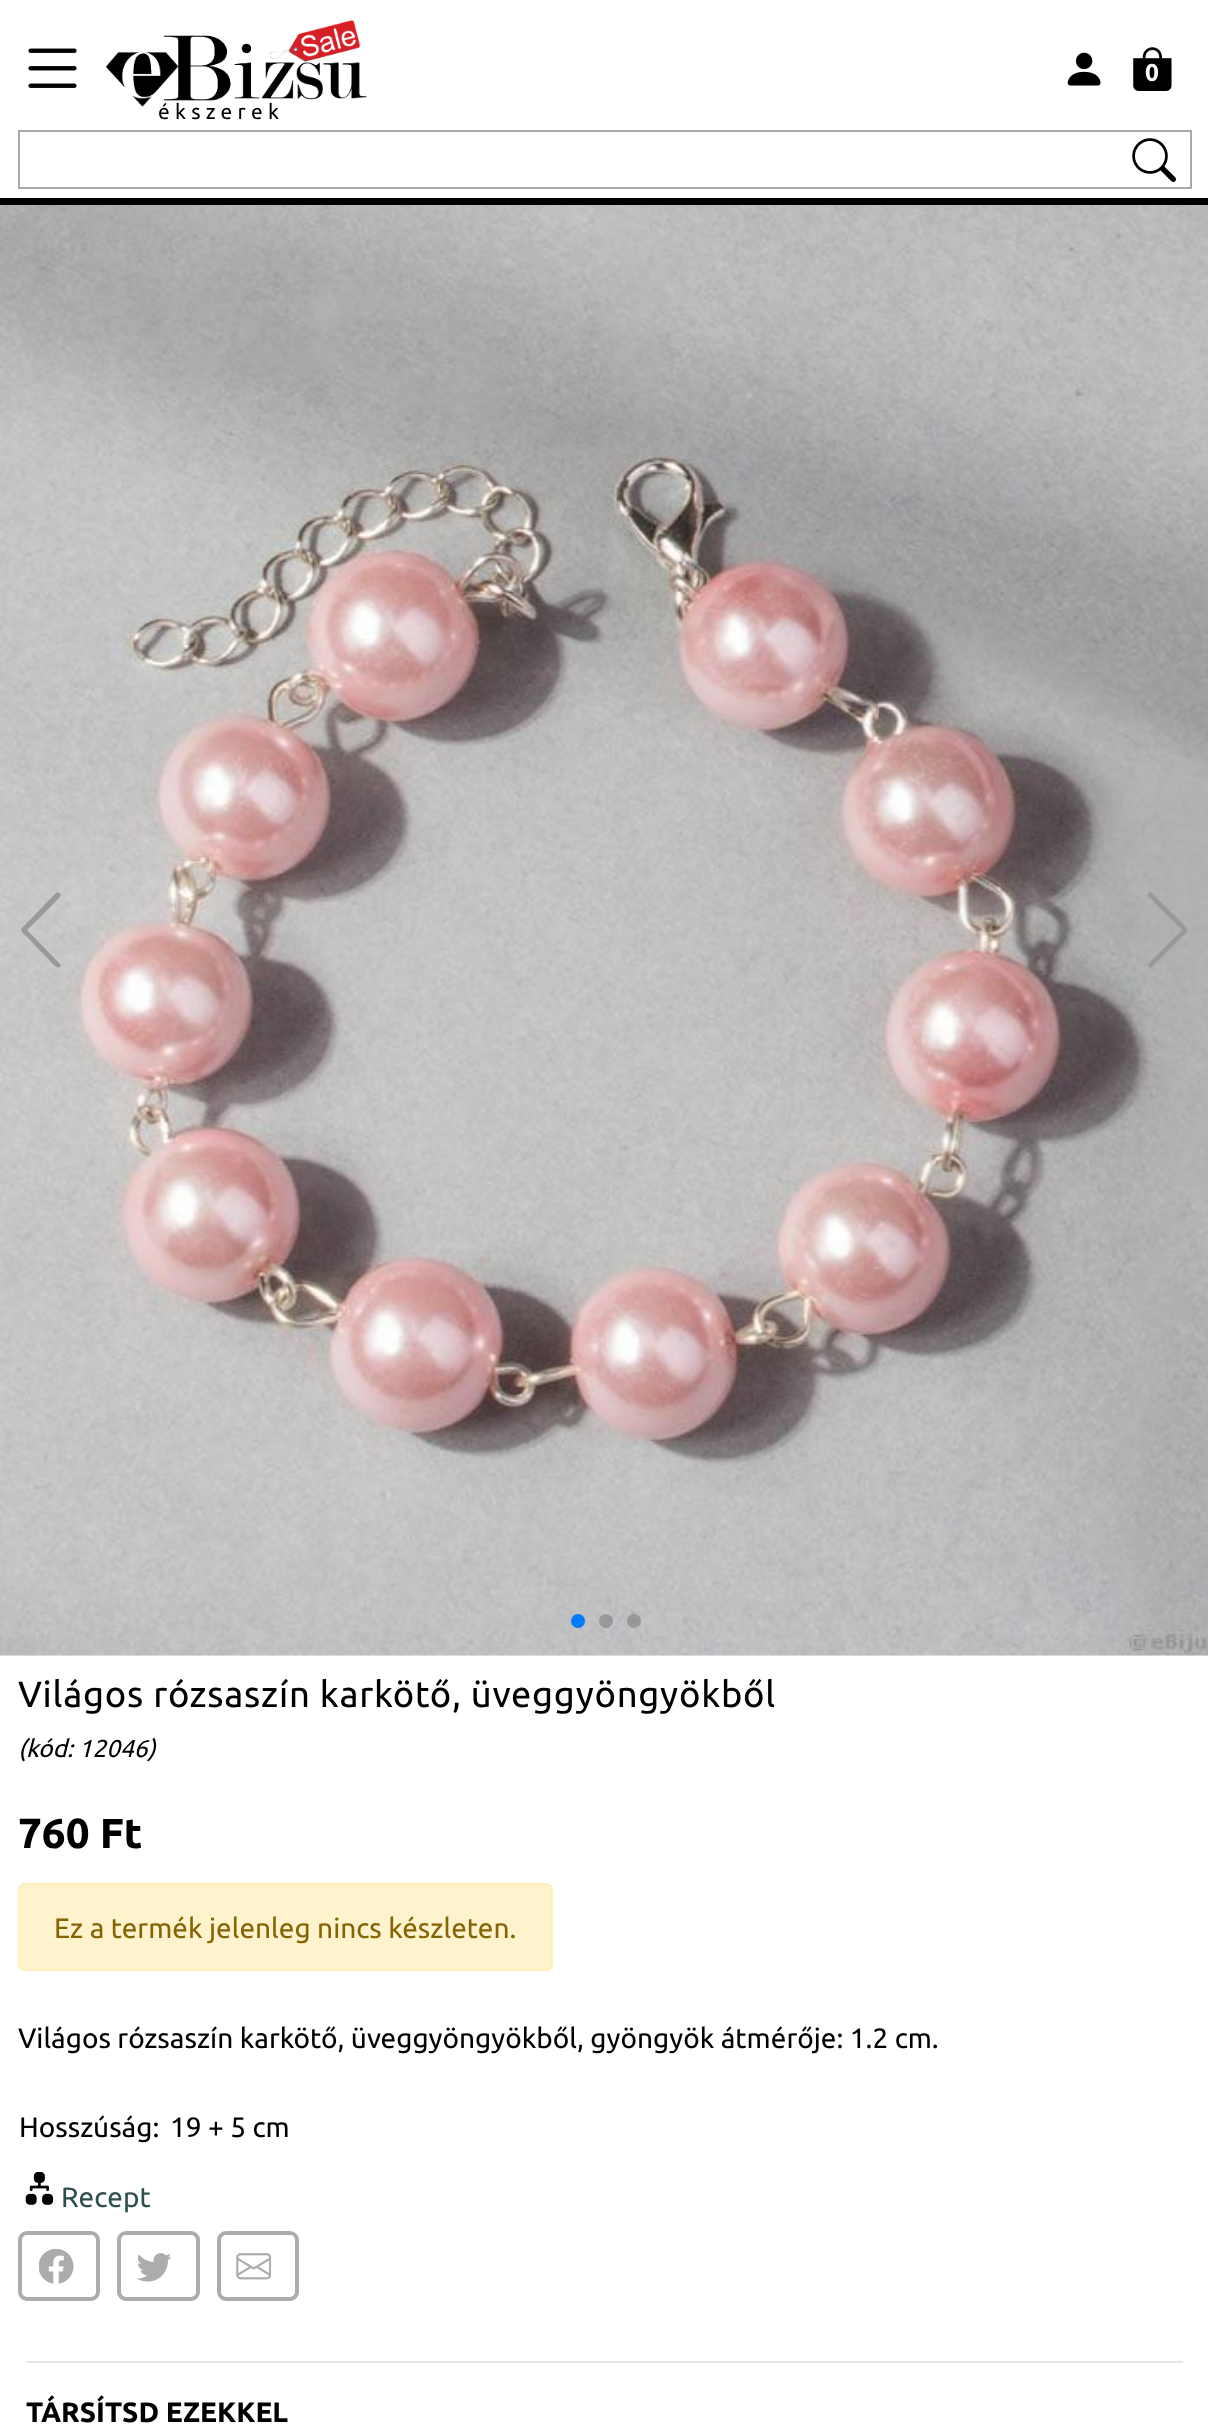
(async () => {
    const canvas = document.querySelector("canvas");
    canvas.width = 1208;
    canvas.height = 2427;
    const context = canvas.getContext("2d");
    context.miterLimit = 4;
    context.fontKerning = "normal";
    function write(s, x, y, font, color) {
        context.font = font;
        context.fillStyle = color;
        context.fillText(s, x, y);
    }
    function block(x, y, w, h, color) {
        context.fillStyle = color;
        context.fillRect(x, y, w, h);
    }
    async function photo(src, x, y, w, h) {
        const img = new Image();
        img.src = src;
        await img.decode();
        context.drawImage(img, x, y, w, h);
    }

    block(0, 0, 1208, 2427, "rgb(255, 255, 255)");
    block(0, 198, 1208, 7, "rgb(0, 0, 0)");
    await photo("media/1.png", 28, 48, 49, 40);
    await photo("media/2.png", 1067, 52, 34, 34);
    await photo("media/3.png", 1133, 47, 39, 44);
    write("0", 1145, 81, "bold 24.5px Ubuntu", "rgb(255, 255, 255)");
    await photo("media/4.png", 105, 20, 262, 87);
    context.letterSpacing = "5.25px";
    write("ékszerek", 158, 119, "21px Ubuntu", "rgb(0, 0, 0)");
    context.strokeStyle = "rgb(169, 169, 169)";
    context.lineWidth = 2;
    context.strokeRect(19, 131, 1172, 57);
    await photo("media/5.png", 1132, 138, 44, 44);
    await photo("media/6.png", 0, 205, 1208, 1451);
    context.fillStyle = "rgb(153, 153, 153)";
    context.beginPath();
    context.moveTo(56, 893);
    context.bezierCurveTo(58, 892, 61, 893, 61, 895);
    context.bezierCurveTo(61, 897, 31, 926, 27, 930);
    context.lineTo(60, 964);
    context.lineTo(61, 965);
    context.bezierCurveTo(59, 971, 54, 965, 50, 961);
    context.lineTo(28, 938);
    context.bezierCurveTo(19, 929, 19, 931, 28, 922);
    context.closePath();
    context.fill();
    context.beginPath();
    context.moveTo(1149, 967);
    context.bezierCurveTo(1147, 966, 1147, 964, 1149, 963);
    context.lineTo(1182, 930);
    context.lineTo(1149, 897);
    context.bezierCurveTo(1147, 896, 1147, 895, 1149, 893);
    context.bezierCurveTo(1150, 892, 1151, 892, 1152, 893);
    context.lineTo(1186, 927);
    context.bezierCurveTo(1187, 928, 1187, 929, 1187, 930);
    context.bezierCurveTo(1187, 931, 1187, 932, 1186, 933);
    context.lineTo(1152, 967);
    context.bezierCurveTo(1151, 968, 1150, 968, 1149, 967);
    context.closePath();
    context.fill();
    context.fillStyle = "rgb(0, 122, 255)";
    context.beginPath();
    context.arc(578, 1621, 7, 0, Math.PI * 2);
    context.fill();
    context.fillStyle = "rgba(0, 0, 0, 0.2)";
    context.beginPath();
    context.arc(606, 1621, 7, 0, Math.PI * 2);
    context.fill();
    context.beginPath();
    context.arc(634, 1621, 7, 0, Math.PI * 2);
    context.fill();
    context.letterSpacing = "0.75px";
    write("Világos rózsaszín karkötő, üveggyöngyökből", 18, 1707, "36.4px Ubuntu", "rgb(0, 0, 0)");
    context.letterSpacing = "0px";
    write("(kód: 12046)", 18, 1757, "italic 24.5px Ubuntu", "rgb(0, 0, 0)");
    write("760 Ft", 18, 1848, "bold 42px Ubuntu", "rgb(0, 0, 0)");
    context.fillStyle = "rgb(255, 243, 205)";
    context.beginPath();
    context.roundRect(19, 1884, 533, 86, 6);
    context.fill();
    context.strokeStyle = "rgb(255, 238, 186)";
    context.stroke();
    write("Ez a termék jelenleg nincs készleten.", 54, 1938, "28px Ubuntu", "rgb(133, 100, 4)");
    write("Világos rózsaszín karkötő, üveggyöngyökből, gyöngyök átmérője: 1.2 cm.", 18, 2048, "28px Ubuntu", "rgb(0, 0, 0)");
    write("Hosszúság:", 19, 2137, "28px Ubuntu", "rgb(0, 0, 0)");
    write("19 + 5 cm", 170, 2137, "28px Ubuntu", "rgb(0, 0, 0)");
    await photo("media/7.png", 25, 2172, 29, 33);
    write("Recept", 61, 2207, "28px Ubuntu", "rgb(47, 79, 79)");
    context.beginPath();
    context.roundRect(20, 2233, 78, 66, 7);
    context.strokeStyle = "rgb(172, 172, 172)";
    context.lineWidth = 4;
    context.stroke();
    await photo("media/8.png", 39, 2249, 35, 35);
    context.beginPath();
    context.roundRect(119, 2233, 79, 66, 7);
    context.stroke();
    await photo("media/9.png", 137, 2253, 35, 29);
    context.beginPath();
    context.roundRect(219, 2233, 78, 66, 7);
    context.stroke();
    await photo("media/10.png", 236, 2253, 35, 27);
    block(26, 2361, 1157, 2, "rgb(230, 230, 230)");
    write("TÁRSÍTSD EZEKKEL", 26, 2422, "bold 28px Ubuntu", "rgb(0, 0, 0)");
})();
